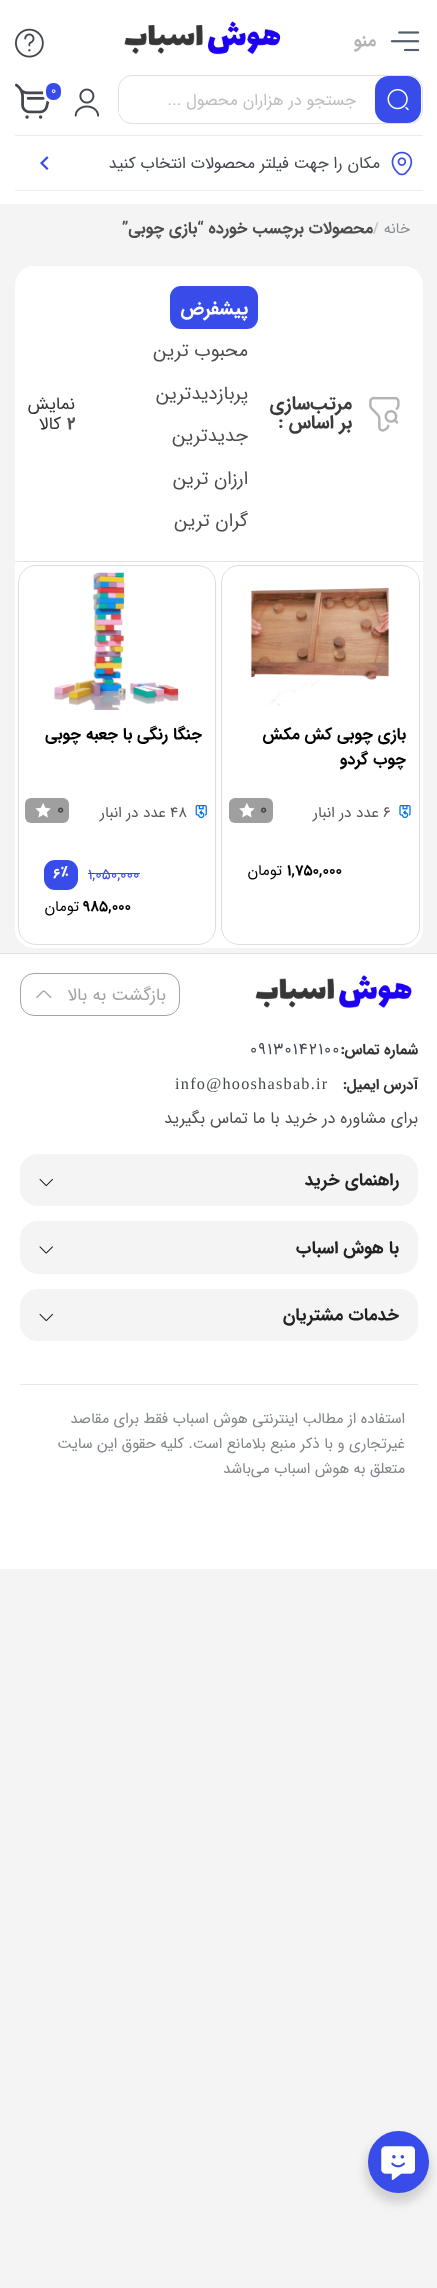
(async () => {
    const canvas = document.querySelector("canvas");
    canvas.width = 437;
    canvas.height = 2288;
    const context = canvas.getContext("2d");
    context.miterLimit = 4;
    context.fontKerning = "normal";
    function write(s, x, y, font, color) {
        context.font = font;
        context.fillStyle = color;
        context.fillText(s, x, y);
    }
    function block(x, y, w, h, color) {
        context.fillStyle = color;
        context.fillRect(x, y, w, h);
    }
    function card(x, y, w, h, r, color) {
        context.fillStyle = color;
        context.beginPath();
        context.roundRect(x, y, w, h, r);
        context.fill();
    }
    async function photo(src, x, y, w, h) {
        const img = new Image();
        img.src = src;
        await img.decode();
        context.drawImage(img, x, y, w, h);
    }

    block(0, 0, 437, 2288, "rgb(244, 244, 244)");
    block(0, 0, 437, 204, "rgb(255, 255, 255)");
    await photo("media/1.png", 390, 31, 30, 21);
    context.direction = "rtl";
    write("منو", 376, 46, "bold 17.5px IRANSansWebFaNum", "rgb(180, 180, 180)");
    await photo("media/2.png", 124, 21, 157, 34);
    await photo("media/3.png", 15, 28, 29, 30);
    block(15, 135, 408, 1, "rgb(235, 235, 239)");
    await photo("media/4.png", 74, 88, 25, 29);
    await photo("media/5.png", 15, 83, 35, 36);
    context.fillStyle = "rgb(55, 76, 232)";
    context.beginPath();
    context.roundRect(44.5, 81.5, 18, 20, 8.5);
    context.fill();
    context.strokeStyle = "rgb(255, 255, 255)";
    context.lineWidth = 3;
    context.stroke();
    context.direction = "ltr";
    write("0", 51, 94, "12px IRANSansWebFaNum", "rgb(255, 255, 255)");
    context.beginPath();
    context.roundRect(118.5, 75.5, 304, 48, 13.5);
    context.strokeStyle = "rgb(224, 224, 224)";
    context.lineWidth = 1;
    context.stroke();
    card(375, 76, 46, 47, 14, "rgb(55, 76, 232)");
    await photo("media/6.png", 387, 89, 22, 22);
    block(119, 86, 1, 28, "rgb(255, 255, 255)");
    context.direction = "rtl";
    write("جستجو در هزاران محصول ...", 356, 105, "16.25px IRANSansWebFaNum", "rgb(190, 190, 190)");
    block(15, 190, 408, 1, "rgb(238, 238, 238)");
    await photo("media/7.png", 391, 151, 22, 25);
    write("مکان را جهت فیلتر محصولات انتخاب کنید", 380, 168, "16.25px IRANSansWebFaNum", "rgb(66, 71, 80)");
    await photo("media/8.png", 40, 156, 9, 14);
    write("خانه", 410, 233, "15px IRANSansWebFaNum", "rgb(137, 141, 146)");
    context.direction = "ltr";
    write("/", 373, 233, "bold 15px IRANSansWebFaNum", "rgb(200, 196, 196)");
    context.direction = "rtl";
    write("محصولات برچسب خورده “بازی چوبی”", 373, 233, "bold 16.25px IRANSansWebFaNum", "rgb(77, 77, 77)");
    card(15, 266, 408, 682, 19, "rgb(255, 255, 255)");
    block(15, 561, 408, 1, "rgb(227, 227, 227)");
    await photo("media/9.png", 369, 396, 31, 36);
    write("مرتب‌سازی", 352, 409, "bold 18.75px IRANSansWebFaNum", "rgb(59, 59, 59)");
    write("بر اساس :", 352, 428, "bold 18.75px IRANSansWebFaNum", "rgb(59, 59, 59)");
    card(170, 286, 88, 43, 11, "rgb(55, 76, 232)");
    write("پیشفرض", 248, 314, "bold 18.75px IRANSansWebFaNum", "rgb(255, 255, 255)");
    write("محبوب ترین", 248, 356, "18.75px IRANSansWebFaNum", "rgb(77, 77, 77)");
    write("پربازدیدترین", 248, 399, "18.75px IRANSansWebFaNum", "rgb(77, 77, 77)");
    write("جدیدترین", 248, 441, "18.75px IRANSansWebFaNum", "rgb(77, 77, 77)");
    write("ارزان ترین", 248, 484, "18.75px IRANSansWebFaNum", "rgb(77, 77, 77)");
    write("گران ترین", 248, 526, "18.75px IRANSansWebFaNum", "rgb(77, 77, 77)");
    write("نمایش", 75, 409, "17.5px IRANSansWebFaNum", "rgb(51, 51, 51)");
    context.direction = "ltr";
    write("2", 67, 429, "bold 17.5px IRANSansWebFaNum", "rgb(85, 85, 85)");
    context.direction = "rtl";
    write("کالا", 61, 429, "17.5px IRANSansWebFaNum", "rgb(51, 51, 51)");
    context.beginPath();
    context.roundRect(221.5, 565.5, 198, 379, 17.5);
    context.strokeStyle = "rgb(222, 222, 225)";
    context.stroke();
    await photo("media/10.png", 251, 587, 138, 119);
    write("بازی چوبی کش مکش", 406, 739, "bold 16.25px IRANSansWebFaNum", "rgb(0, 0, 0)");
    write("چوب گردو", 406, 764, "bold 16.25px IRANSansWebFaNum", "rgb(0, 0, 0)");
    await photo("media/11.png", 399, 805, 12, 14);
    context.direction = "ltr";
    write("6", 383, 817, "15px IRANSansWebFaNum", "rgb(85, 85, 85)");
    context.direction = "rtl";
    write("عدد در انبار", 379, 817, "15px IRANSansWebFaNum", "rgb(85, 85, 85)");
    card(229, 798, 44, 25, 6, "rgb(159, 159, 159)");
    context.direction = "ltr";
    write("0", 260, 814, "bold 16.25px IRANSansWebFaNum", "rgb(69, 69, 69)");
    await photo("media/12.png", 239, 803, 16, 15);
    write("1,750,000", 287, 875, "bold 15px IRANSansWebFaNum", "rgb(0, 0, 0)");
    context.direction = "rtl";
    write("تومان", 282, 875, "15px IRANSansWebFaNum", "rgb(0, 0, 0)");
    context.beginPath();
    context.roundRect(18.5, 565.5, 197, 379, 17.5);
    context.stroke();
    await photo("media/13.png", 54, 572, 125, 138);
    write("جنگا رنگی با جعبه چوبی", 202, 739, "bold 16.25px IRANSansWebFaNum", "rgb(0, 0, 0)");
    await photo("media/14.png", 195, 805, 12, 14);
    context.direction = "ltr";
    write("48", 170, 817, "15px IRANSansWebFaNum", "rgb(85, 85, 85)");
    context.direction = "rtl";
    write("عدد در انبار", 166, 817, "15px IRANSansWebFaNum", "rgb(85, 85, 85)");
    card(25, 798, 44, 25, 6, "rgb(159, 159, 159)");
    context.direction = "ltr";
    write("0", 57, 814, "bold 16.25px IRANSansWebFaNum", "rgb(69, 69, 69)");
    await photo("media/15.png", 35, 803, 16, 15);
    write("1,050,000", 88, 879, "15px IRANSansWebFaNum", "rgb(55, 76, 232)");
    block(88, 873, 52, 1, "rgb(55, 76, 232)");
    card(44, 860, 34, 30, 11, "rgb(55, 76, 232)");
    write("٪", 61, 876, "bold 14px IRANSansWebFaNum", "rgb(255, 255, 255)");
    write("6", 53, 878, "bold 14px IRANSansWebFaNum", "rgb(255, 255, 255)");
    write("985,000", 83, 911, "bold 15px IRANSansWebFaNum", "rgb(0, 0, 0)");
    context.direction = "rtl";
    write("تومان", 79, 911, "15px IRANSansWebFaNum", "rgb(0, 0, 0)");
    block(0, 954, 437, 615, "rgb(255, 255, 255)");
    block(0, 953, 437, 1, "rgb(224, 224, 226)");
    await photo("media/16.png", 255, 975, 157, 33);
    context.beginPath();
    context.roundRect(20.5, 973.5, 159, 42, 13.5);
    context.strokeStyle = "rgb(161, 163, 168)";
    context.stroke();
    write("بازگشت به بالا", 166, 1000, "17.5px IRANSansWebFaNum", "rgb(161, 163, 168)");
    await photo("media/17.png", 36, 990, 16, 9);
    write("شماره تماس:", 418, 1054, "bold 15px IRANSansWebFaNum", "rgb(51, 51, 51)");
    context.letterSpacing = "1.25px";
    context.direction = "ltr";
    write("09130142100", 250, 1054, "16.25px IRANSansWebFaNum", "rgb(66, 71, 80)");
    context.letterSpacing = "0px";
    context.direction = "rtl";
    write("آدرس ایمیل:", 418, 1089, "bold 15px IRANSansWebFaNum", "rgb(51, 51, 51)");
    context.letterSpacing = "1.25px";
    context.direction = "ltr";
    write("info@hooshasbab.ir", 175, 1089, "16.25px Liberation Serif", "rgb(66, 71, 80)");
    context.letterSpacing = "0px";
    context.direction = "rtl";
    write("برای مشاوره در خرید با ما تماس بگیرید", 418, 1123, "16.25px IRANSansWebFaNum", "rgb(77, 77, 77)");
    card(20, 1154, 398, 52, 18, "rgb(244, 244, 244)");
    write("راهنمای خرید", 399, 1185, "bold 17.5px IRANSansWebFaNum", "rgb(34, 34, 34)");
    await photo("media/18.png", 39, 1178, 14, 9);
    card(20, 1221, 398, 53, 18, "rgb(244, 244, 244)");
    write("با هوش اسباب", 399, 1253, "bold 17.5px IRANSansWebFaNum", "rgb(34, 34, 34)");
    await photo("media/19.png", 39, 1246, 14, 8);
    card(20, 1289, 398, 52, 18, "rgb(244, 244, 244)");
    write("خدمات مشتریان", 399, 1320, "bold 17.5px IRANSansWebFaNum", "rgb(34, 34, 34)");
    await photo("media/18.png", 39, 1313, 14, 9);
    block(20, 1384, 398, 1, "rgb(232, 232, 232)");
    write("استفاده از مطالب", 405, 1423, "15px IRANSansWebFaNum", "rgb(129, 133, 139)");
    write("اینترنتی هوش اسباب فقط برای مقاصد", 298, 1423, "15px IRANSansWebFaNum", "rgb(129, 133, 139)");
    write("غیرتجاری و با ذکر منبع بلامانع است. کلیه حقوق این سایت", 405, 1448, "15px IRANSansWebFaNum", "rgb(129, 133, 139)");
    write("متعلق به هوش اسباب می‌باشد", 405, 1473, "15px IRANSansWebFaNum", "rgb(129, 133, 139)");
    context.fillStyle = "rgba(0, 0, 0, 0.14)";
    context.filter = "blur(5px)";
    context.beginPath();
    context.roundRect(365, 2136, 66, 67, 33);
    context.fill();
    context.filter = "none";
    card(368, 2131, 61, 62, 30.5, "rgb(55, 76, 232)");
    await photo("media/20.png", 381, 2146, 34, 34);
})();
